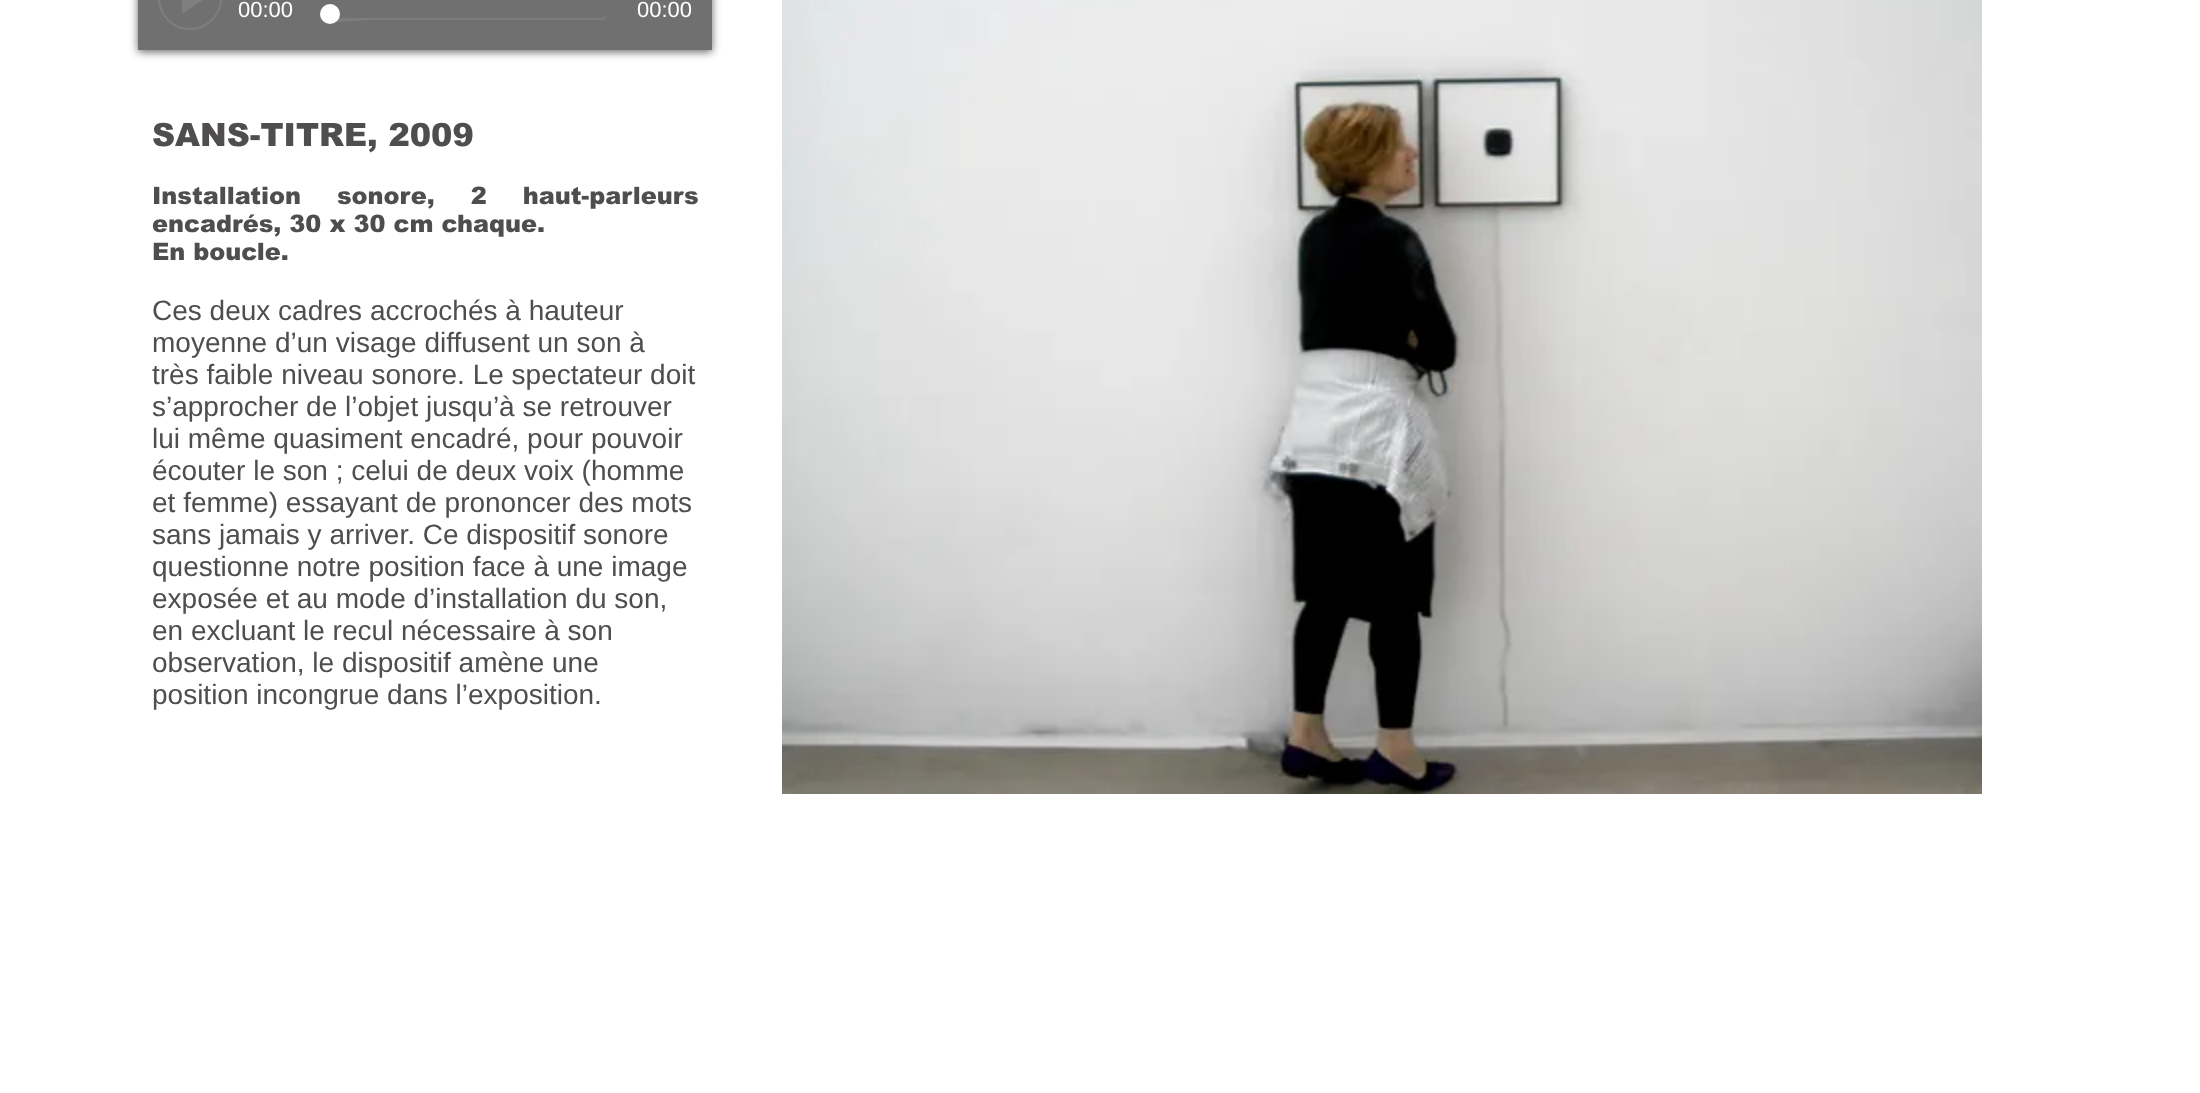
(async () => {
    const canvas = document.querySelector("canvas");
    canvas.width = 2200;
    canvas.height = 1093;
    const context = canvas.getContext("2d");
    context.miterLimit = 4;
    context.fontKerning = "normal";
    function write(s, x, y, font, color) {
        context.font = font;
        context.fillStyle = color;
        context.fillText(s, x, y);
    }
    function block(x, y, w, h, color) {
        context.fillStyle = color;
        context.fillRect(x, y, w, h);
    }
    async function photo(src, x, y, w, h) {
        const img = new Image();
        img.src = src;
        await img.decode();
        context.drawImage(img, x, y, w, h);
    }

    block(0, 0, 2200, 1093, "rgb(255, 255, 255)");
    context.fillStyle = "rgba(0, 0, 0, 0.6)";
    context.filter = "blur(4px)";
    context.beginPath();
    context.rect(138, -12, 574, 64);
    context.fill();
    context.filter = "none";
    block(138, 0, 574, 50, "rgb(112, 112, 112)");
    context.beginPath();
    context.arc(190, -2, 31, 0, Math.PI * 2);
    context.strokeStyle = "rgb(127, 126, 126)";
    context.lineWidth = 2;
    context.stroke();
    context.fillStyle = "rgb(127, 126, 126)";
    context.beginPath();
    context.moveTo(182, 14);
    context.lineTo(182, -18);
    context.lineTo(206, -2);
    context.closePath();
    context.fill();
    write("00:00", 238, 17, "22px Liberation Sans", "rgb(255, 255, 255)");
    write("00:00", 637, 17, "22px Liberation Sans", "rgb(255, 255, 255)");
    context.fillStyle = "rgb(125, 125, 125)";
    context.beginPath();
    context.moveTo(320, 14);
    context.bezierCurveTo(318, 27, 356, 20, 371, 20);
    context.lineTo(602, 20);
    context.bezierCurveTo(603, 20, 604, 19, 605, 18);
    context.bezierCurveTo(606, 17, 606, 15, 606, 14);
    context.bezierCurveTo(605, 16, 604, 18, 601, 18);
    context.lineTo(325, 18);
    context.bezierCurveTo(322, 18, 321, 16, 320, 14);
    context.closePath();
    context.fill();
    context.fillStyle = "rgb(255, 255, 255)";
    context.beginPath();
    context.arc(330, 14, 10, 0, Math.PI * 2);
    context.fill();
    await photo("media/1.png", 782, 0, 1200, 794);
    write("SANS-TITRE, 2009", 152, 146, "900 32px arial", "rgb(79, 77, 77)");
    context.wordSpacing = "28px";
    write("Installation sonore, 2 haut-parleurs", 152, 204, "900 24px arial", "rgb(79, 77, 77)");
    context.wordSpacing = "0px";
    write("encadrés, 30 x 30 cm chaque.", 152, 232, "900 24px arial", "rgb(79, 77, 77)");
    write("En boucle.", 152, 260, "900 24px arial", "rgb(79, 77, 77)");
    write("Ces deux cadres accrochés à hauteur", 152, 320, "28px Liberation Sans", "rgb(79, 77, 77)");
    write("moyenne d’un visage diffusent un son à", 152, 352, "28px Liberation Sans", "rgb(79, 77, 77)");
    write("très faible niveau sonore. Le spectateur doit", 152, 384, "28px Liberation Sans", "rgb(79, 77, 77)");
    write("s’approcher de l’objet jusqu’à se retrouver", 152, 416, "28px Liberation Sans", "rgb(79, 77, 77)");
    write("lui même quasiment encadré, pour pouvoir", 152, 448, "28px Liberation Sans", "rgb(79, 77, 77)");
    write("écouter le son ; celui de deux voix (homme", 152, 480, "28px Liberation Sans", "rgb(79, 77, 77)");
    write("et femme) essayant de prononcer des mots", 152, 512, "28px Liberation Sans", "rgb(79, 77, 77)");
    write("sans jamais y arriver. Ce dispositif sonore", 152, 544, "28px Liberation Sans", "rgb(79, 77, 77)");
    write("questionne notre position face à une image", 152, 576, "28px Liberation Sans", "rgb(79, 77, 77)");
    write("exposée et au mode d’installation du son,", 152, 608, "28px Liberation Sans", "rgb(79, 77, 77)");
    write("en excluant le recul nécessaire à son", 152, 640, "28px Liberation Sans", "rgb(79, 77, 77)");
    write("observation, le dispositif amène une", 152, 672, "28px Liberation Sans", "rgb(79, 77, 77)");
    write("position incongrue dans l’exposition.", 152, 704, "28px Liberation Sans", "rgb(79, 77, 77)");
})();
